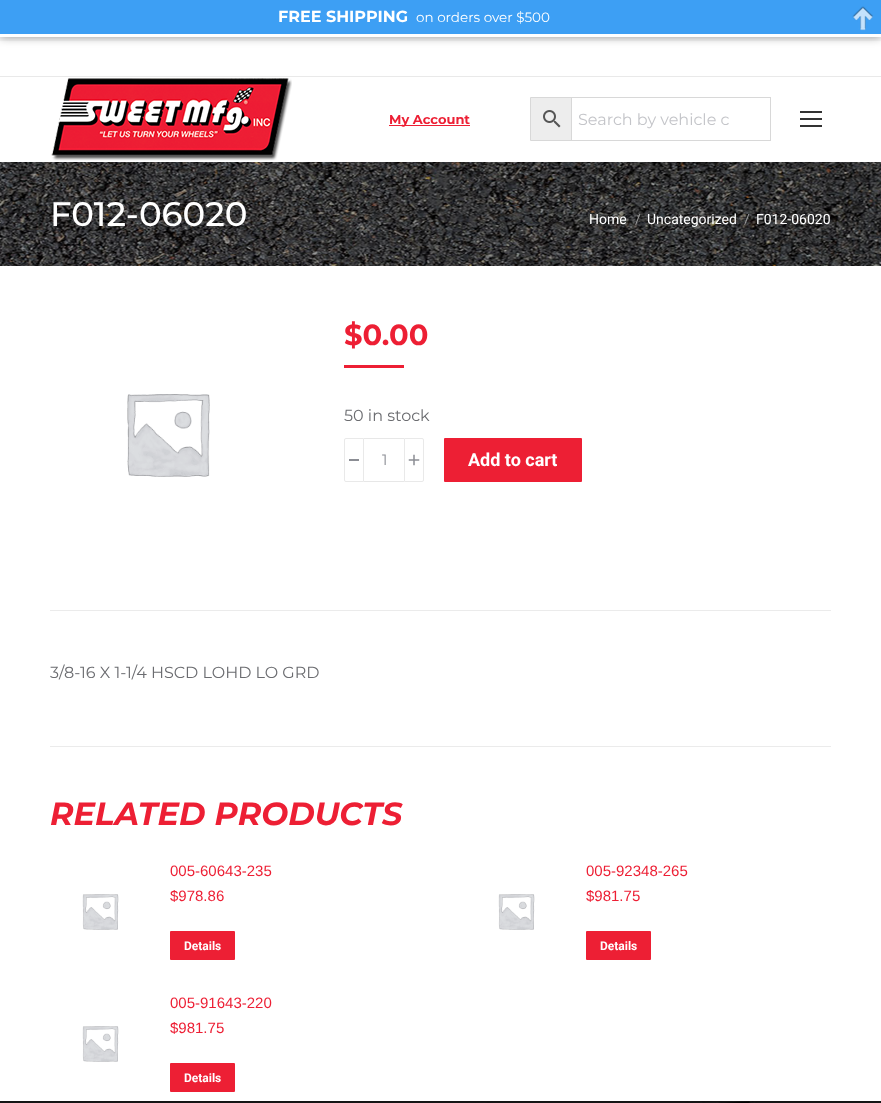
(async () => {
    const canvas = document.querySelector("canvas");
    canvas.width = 881;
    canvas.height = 1103;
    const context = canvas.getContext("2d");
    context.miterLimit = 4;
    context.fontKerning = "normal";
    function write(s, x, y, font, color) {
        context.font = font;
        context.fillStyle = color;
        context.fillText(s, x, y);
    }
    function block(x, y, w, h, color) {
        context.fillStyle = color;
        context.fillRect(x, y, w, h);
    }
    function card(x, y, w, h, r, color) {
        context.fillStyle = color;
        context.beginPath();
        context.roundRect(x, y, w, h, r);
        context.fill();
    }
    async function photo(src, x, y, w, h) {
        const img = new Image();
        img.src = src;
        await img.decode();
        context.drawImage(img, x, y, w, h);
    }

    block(0, 0, 881, 1103, "rgb(247, 247, 247)");
    block(0, 41, 881, 1060, "rgb(255, 255, 255)");
    context.fillStyle = "rgba(0, 0, 0, 0.4)";
    context.filter = "blur(5px)";
    context.beginPath();
    context.rect(0, 0, 881, 37);
    context.fill();
    context.filter = "none";
    block(0, 0, 881, 34, "rgb(61, 159, 244)");
    block(0, 34, 881, 3, "rgb(255, 255, 255)");
    write("FREE SHIPPING", 278, 22, "bold 16px Montserrat", "rgb(255, 255, 255)");
    write("on orders over $500", 416, 22, "13.5px Montserrat", "rgb(255, 255, 255)");
    await photo("media/1.png", 852, 6, 21, 25);
    block(0, 76, 881, 1, "rgb(233, 233, 233)");
    await photo("media/2.png", 51, 78, 241, 83);
    block(389, 125, 81, 1, "rgb(237, 31, 52)");
    write("My Account", 389, 124, "bold 13px Montserrat", "rgb(237, 31, 52)");
    context.fillStyle = "rgb(237, 237, 237)";
    context.beginPath();
    context.rect(530.5, 97.5, 41, 43);
    context.fill();
    context.strokeStyle = "rgb(216, 216, 216)";
    context.stroke();
    await photo("media/3.png", 543, 110, 18, 18);
    context.strokeRect(571.5, 97.5, 199, 43);
    write("Search by vehicle c", 578, 125, "16px Montserrat", "rgb(196, 197, 201)");
    block(800, 111, 22, 2, "rgb(51, 51, 51)");
    block(800, 118, 22, 2, "rgb(51, 51, 51)");
    block(800, 125, 22, 2, "rgb(51, 51, 51)");
    await photo("media/4.png", 0, 162, 881, 104);
    write("F012-06020", 50, 226, "500 34px Montserrat", "rgb(255, 255, 255)");
    write("Home", 589, 224, "14px Roboto", "rgb(255, 255, 255)");
    write("/", 635, 224, "14px Roboto", "rgb(153, 153, 153)");
    write("Uncategorized", 647, 224, "14px Roboto", "rgb(255, 255, 255)");
    write("/", 744, 224, "14px Roboto", "rgb(153, 153, 153)");
    write("F012-06020", 756, 224, "14px Roboto", "rgb(255, 255, 255)");
    await photo("media/5.png", 127, 394, 83, 83);
    write("$0.00", 344, 345, "bold 29px Montserrat", "rgb(237, 31, 52)");
    block(344, 365, 60, 3, "rgb(237, 31, 52)");
    write("50 in stock", 344, 421, "16px Montserrat", "rgb(107, 108, 112)");
    context.beginPath();
    context.roundRect(344.5, 438.5, 19, 43, [1.5, 0, 0, 1.5]);
    context.strokeStyle = "rgb(233, 233, 233)";
    context.stroke();
    block(349, 459, 10, 2, "rgb(139, 141, 148)");
    block(364, 438, 40, 1, "rgb(231, 231, 231)");
    block(364, 481, 40, 1, "rgb(231, 231, 231)");
    write("1", 382, 465, "15px Montserrat", "rgb(139, 141, 148)");
    context.beginPath();
    context.roundRect(404.5, 438.5, 19, 43, [0, 1.5, 1.5, 0]);
    context.stroke();
    await photo("media/6.png", 408, 454, 12, 12);
    card(444, 438, 138, 44, 1, "rgb(237, 31, 52)");
    write("Add to cart", 468, 466, "bold 18px Roboto", "rgb(255, 255, 255)");
    block(50, 610, 781, 1, "rgb(235, 235, 235)");
    write("3/8-16 X 1-1/4 HSCD LOHD LO GRD", 50, 678, "16px Montserrat", "rgb(107, 108, 112)");
    block(50, 746, 781, 1, "rgb(235, 235, 235)");
    write("RELATED PRODUCTS", 50, 825, "italic 100 32px Montserrat", "rgb(237, 31, 52)");
    await photo("media/7.png", 82, 894, 37, 36);
    write("005-60643-235", 170, 876, "15px Liberation Sans", "rgb(237, 31, 52)");
    write("$978.86", 170, 901, "15px Liberation Sans", "rgb(237, 31, 52)");
    card(170, 931, 65, 29, 1, "rgb(237, 31, 52)");
    write("Details", 184, 950, "bold 12px Roboto", "rgb(255, 255, 255)");
    await photo("media/7.png", 498, 894, 37, 36);
    write("005-92348-265", 586, 876, "15px Liberation Sans", "rgb(237, 31, 52)");
    write("$981.75", 586, 901, "15px Liberation Sans", "rgb(237, 31, 52)");
    card(586, 931, 65, 29, 1, "rgb(237, 31, 52)");
    write("Details", 600, 950, "bold 12px Roboto", "rgb(255, 255, 255)");
    await photo("media/7.png", 82, 1026, 37, 36);
    write("005-91643-220", 170, 1008, "15px Liberation Sans", "rgb(237, 31, 52)");
    write("$981.75", 170, 1033, "15px Liberation Sans", "rgb(237, 31, 52)");
    card(170, 1063, 65, 29, 1, "rgb(237, 31, 52)");
    write("Details", 184, 1082, "bold 12px Roboto", "rgb(255, 255, 255)");
    await photo("media/8.png", 0, 1101, 881, 2);
})();
